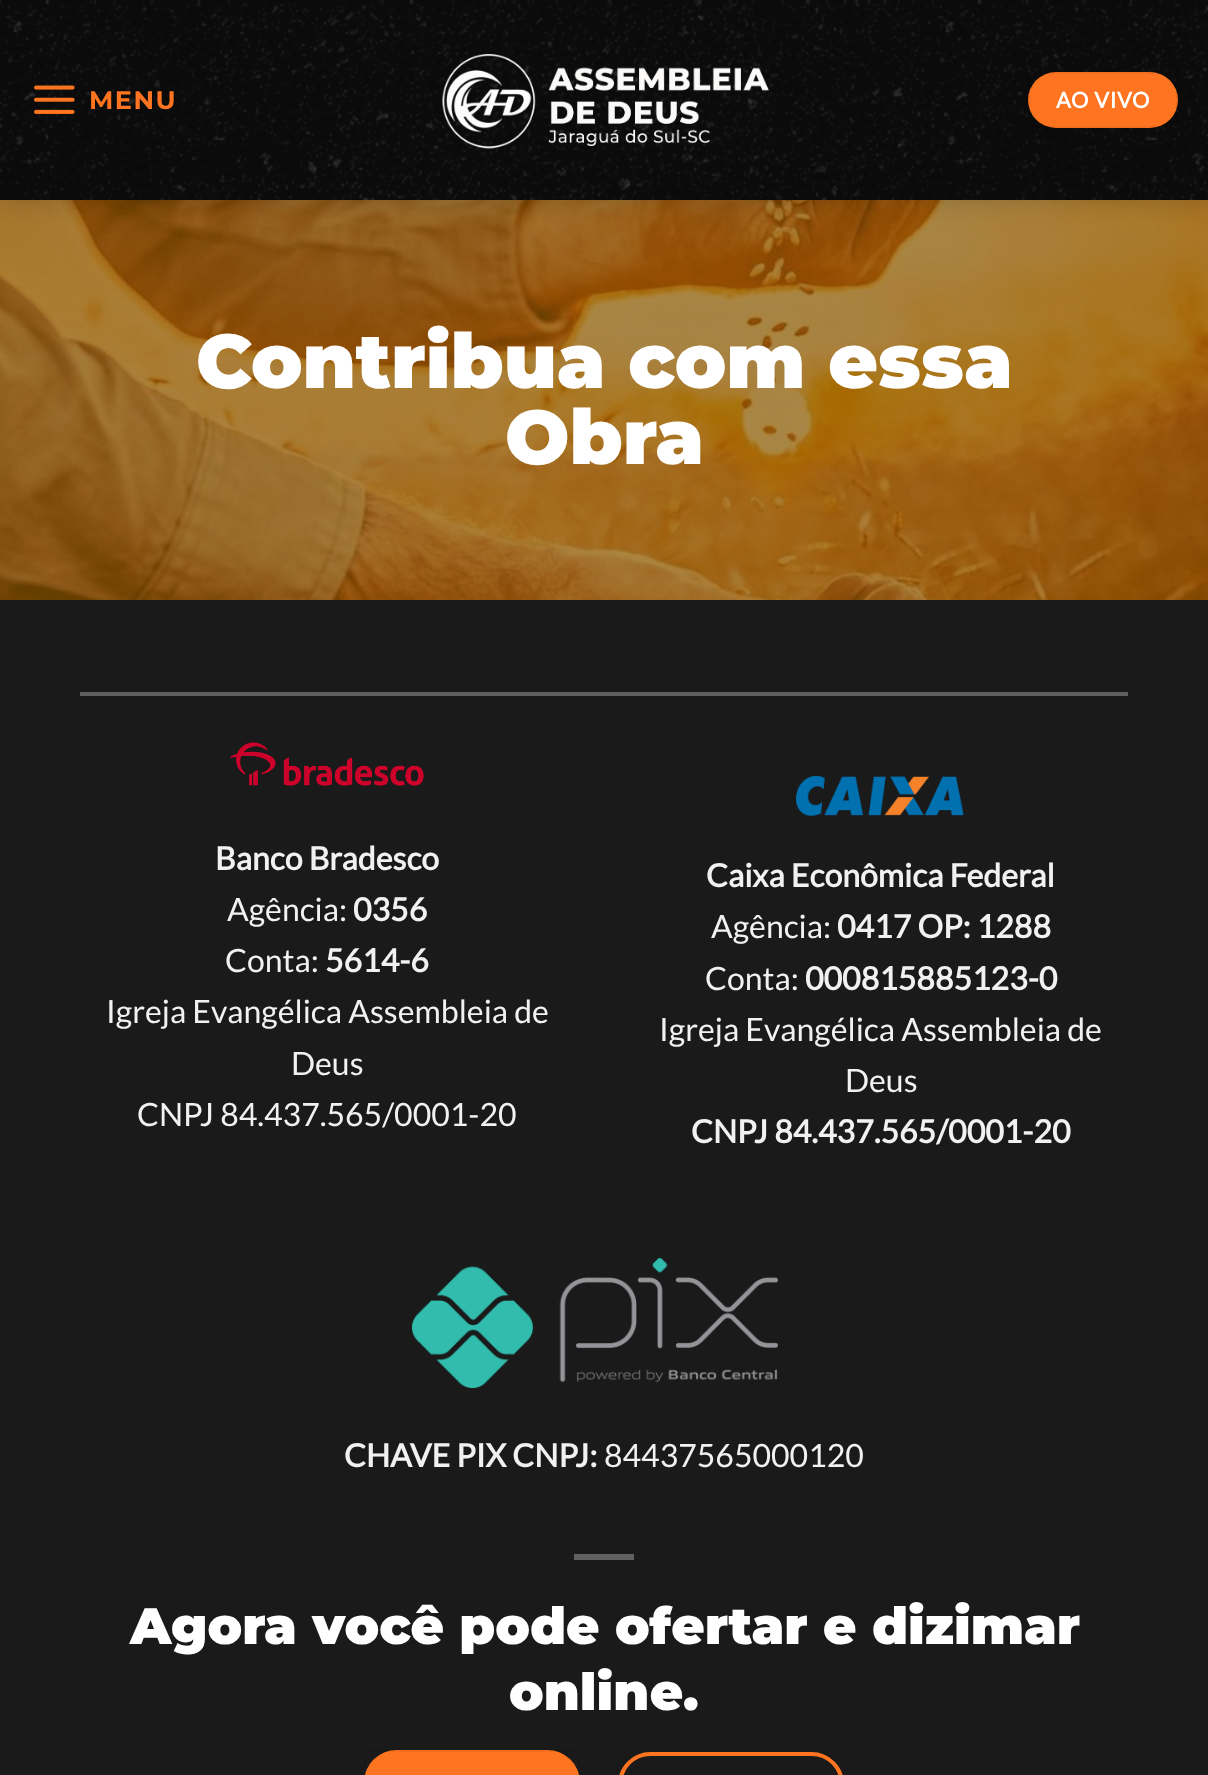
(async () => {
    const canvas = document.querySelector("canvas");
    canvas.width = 1208;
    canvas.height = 1775;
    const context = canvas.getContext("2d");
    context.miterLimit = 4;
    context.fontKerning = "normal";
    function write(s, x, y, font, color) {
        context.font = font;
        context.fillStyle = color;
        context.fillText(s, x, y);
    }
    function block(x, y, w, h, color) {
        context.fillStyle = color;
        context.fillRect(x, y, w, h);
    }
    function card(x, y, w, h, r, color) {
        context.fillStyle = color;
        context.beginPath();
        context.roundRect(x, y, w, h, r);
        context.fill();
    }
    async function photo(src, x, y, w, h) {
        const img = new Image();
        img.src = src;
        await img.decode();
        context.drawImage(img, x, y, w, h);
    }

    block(0, 0, 1208, 1775, "rgb(255, 255, 255)");
    await photo("media/4.png", 0, 200, 1208, 400);
    context.fillStyle = "rgba(0, 0, 0, 0.15)";
    context.filter = "blur(10px)";
    context.beginPath();
    context.rect(2, 2, 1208, 200);
    context.fill();
    context.filter = "none";
    await photo("media/1.png", 0, 0, 1208, 200);
    await photo("media/2.png", 34, 85, 41, 29);
    context.letterSpacing = "1.5px";
    write("MENU", 89, 109, "bold 25.5px Montserrat", "rgb(255, 116, 32)");
    await photo("media/3.png", 442, 54, 327, 95);
    card(1028, 72, 150, 56, 28, "rgb(255, 116, 32)");
    context.strokeStyle = "rgba(0, 0, 0, 0.05)";
    context.lineWidth = 2;
    context.strokeRect(1029, 73, 148, 54);
    context.letterSpacing = "0.75px";
    write("AO VIVO", 1056, 108, "bold 21.75px Lato", "rgb(255, 255, 255)");
    context.letterSpacing = "0px";
    write("Contribua com essa", 196, 388, "900 76.1px Montserrat", "rgb(255, 255, 255)");
    write("Obra", 505, 464, "900 76.1px Montserrat", "rgb(255, 255, 255)");
    block(0, 600, 1208, 1175, "rgb(26, 26, 26)");
    block(80, 692, 1048, 4, "rgb(95, 95, 95)");
    await photo("media/5.png", 230, 742, 194, 44);
    write("Banco Bradesco", 215, 870, "bold 32px Lato", "rgb(241, 241, 241)");
    write("Agência:", 227, 921, "32px Lato", "rgb(241, 241, 241)");
    write("0356", 353, 921, "bold 32px Lato", "rgb(241, 241, 241)");
    write("Conta:", 225, 972, "32px Lato", "rgb(241, 241, 241)");
    write("5614-6", 325, 972, "bold 32px Lato", "rgb(241, 241, 241)");
    write("Igreja Evangélica Assembleia de", 106, 1023, "32px Lato", "rgb(241, 241, 241)");
    write("Deus", 291, 1075, "32px Lato", "rgb(241, 241, 241)");
    write("CNPJ 84.437.565/0001-20", 137, 1126, "32px Lato", "rgb(241, 241, 241)");
    await photo("media/6.png", 796, 776, 168, 40);
    write("Caixa Econômica Federal", 706, 887, "bold 32px Lato", "rgb(241, 241, 241)");
    write("Agência:", 711, 938, "32px Lato", "rgb(241, 241, 241)");
    write("0417 OP: 1288", 837, 938, "bold 32px Lato", "rgb(241, 241, 241)");
    write("Conta:", 705, 990, "32px Lato", "rgb(241, 241, 241)");
    write("000815885123-0", 805, 990, "bold 32px Lato", "rgb(241, 241, 241)");
    write("Igreja Evangélica Assembleia de", 659, 1041, "32px Lato", "rgb(241, 241, 241)");
    write("Deus", 845, 1092, "32px Lato", "rgb(241, 241, 241)");
    write("CNPJ 84.437.565/0001-20", 691, 1143, "bold 32px Lato", "rgb(241, 241, 241)");
    await photo("media/7.png", 412, 1258, 366, 130);
    write("CHAVE PIX CNPJ:", 344, 1467, "bold 32px Lato", "rgb(241, 241, 241)");
    write("84437565000120", 604, 1467, "32px Lato", "rgb(241, 241, 241)");
    block(574, 1554, 60, 6, "rgb(95, 95, 95)");
    write("Agora você pode ofertar e dizimar", 130, 1644, "900 51.25px Montserrat", "rgb(255, 255, 255)");
    write("online.", 509, 1710, "900 51.25px Montserrat", "rgb(255, 255, 255)");
    card(364, 1750, 216, 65, 40, "rgb(255, 116, 32)");
    context.strokeRect(365, 1751, 214, 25);
    context.beginPath();
    context.roundRect(620, 1754, 222, 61, 36);
    context.strokeStyle = "rgb(255, 116, 32)";
    context.lineWidth = 4;
    context.stroke();
})();
